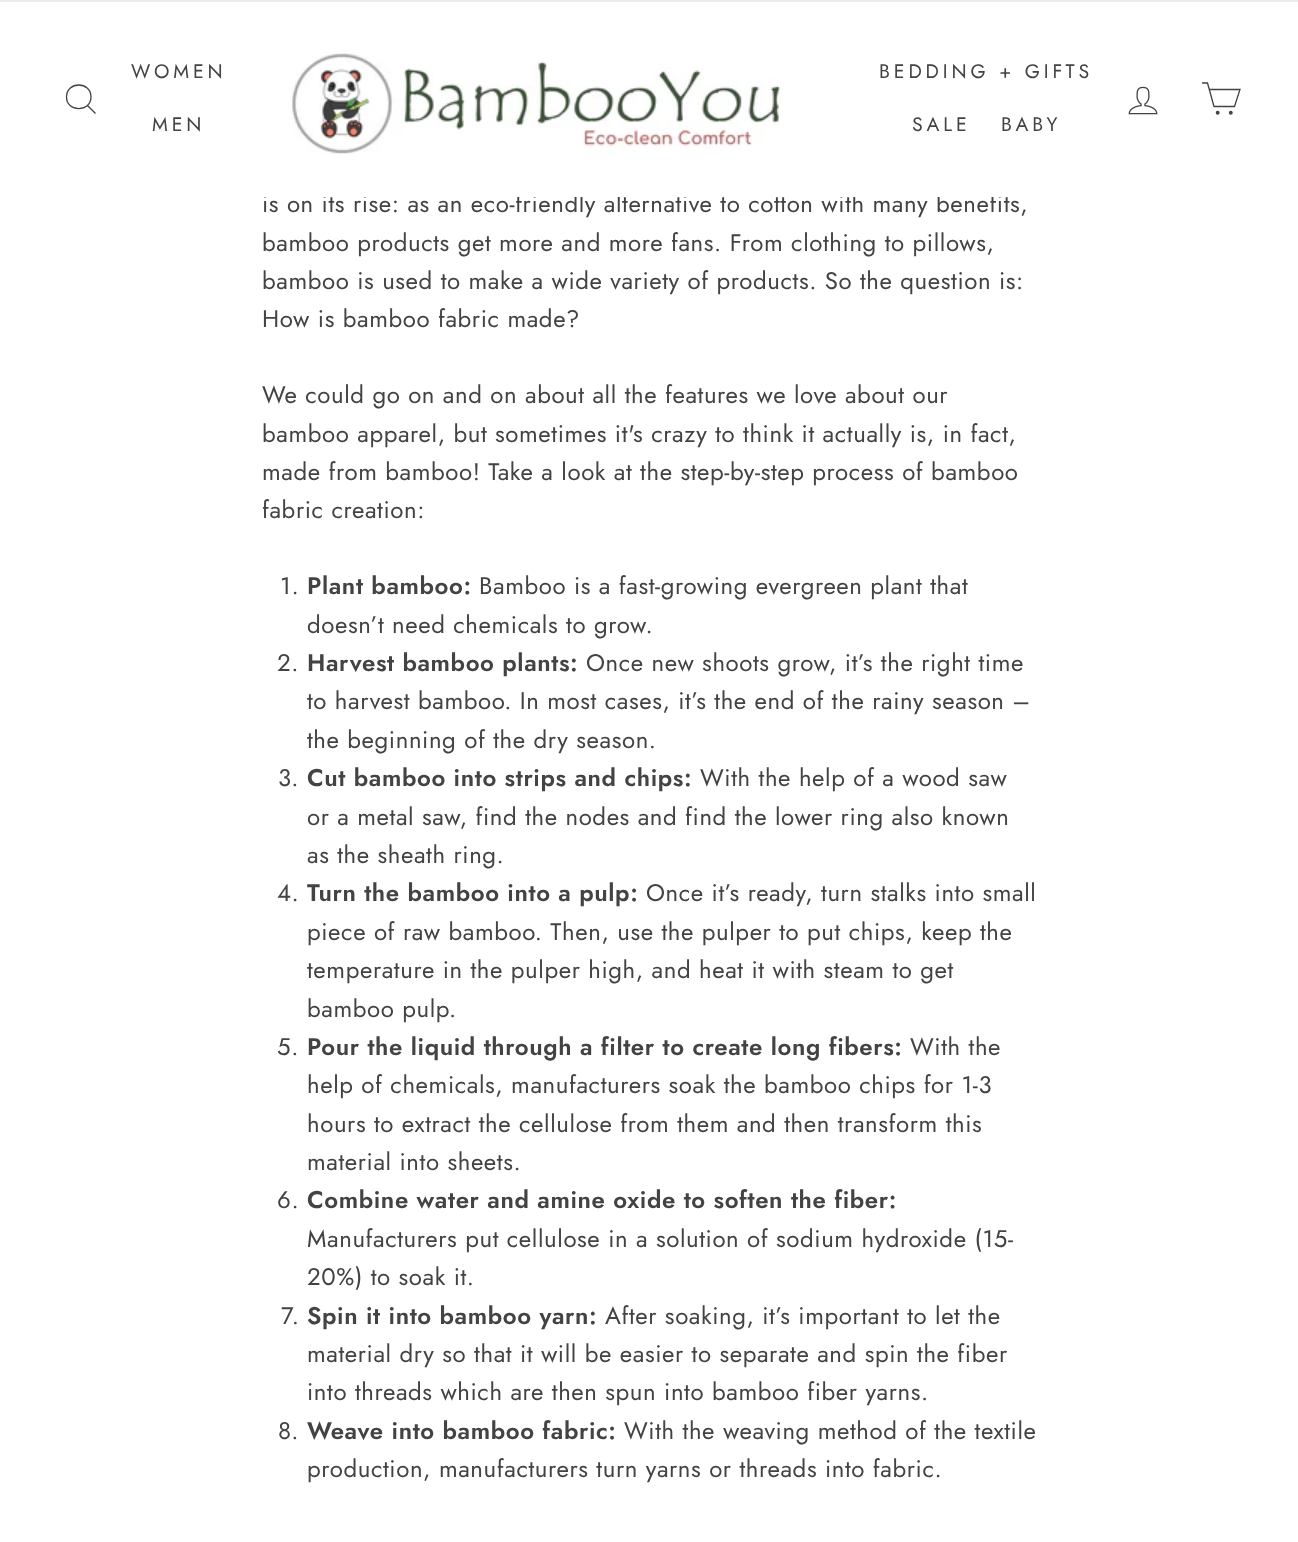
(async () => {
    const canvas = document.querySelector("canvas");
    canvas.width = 1298;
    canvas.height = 1542;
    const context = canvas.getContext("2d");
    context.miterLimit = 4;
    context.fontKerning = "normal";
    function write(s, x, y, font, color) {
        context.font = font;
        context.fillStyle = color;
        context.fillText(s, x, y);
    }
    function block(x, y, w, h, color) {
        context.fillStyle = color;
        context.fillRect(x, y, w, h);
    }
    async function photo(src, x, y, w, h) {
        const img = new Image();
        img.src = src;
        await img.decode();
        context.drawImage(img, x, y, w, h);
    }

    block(0, 0, 1298, 1542, "rgb(255, 255, 255)");
    context.letterSpacing = "0.6px";
    write("is on its rise: as an eco-friendly alternative to cotton with many benefits,", 262, 212, "24px Jost", "rgb(68, 66, 66)");
    block(263, 193, 739, 4, "rgb(255, 255, 255)");
    block(0, 0, 1298, 2, "rgb(236, 236, 236)");
    context.beginPath();
    context.moveTo(91, 97);
    context.bezierCurveTo(91, 112.5, 66.5, 112.5, 66.5, 97);
    context.bezierCurveTo(66.5, 81, 91, 81, 91, 97);
    context.closePath();
    context.moveTo(95.5, 113.5);
    context.lineTo(87.5, 105.5);
    context.strokeStyle = "rgb(68, 66, 66)";
    context.lineWidth = 1.3;
    context.stroke();
    context.letterSpacing = "3.9px";
    write("WOMEN", 131, 78, "19.5px Jost", "rgb(68, 66, 66)");
    write("MEN", 152, 131, "19.5px Jost", "rgb(68, 66, 66)");
    await photo("media/1.png", 291, 50, 490, 104);
    write("BEDDING + GIFTS", 879, 78, "19.5px Jost", "rgb(68, 66, 66)");
    write("SALE", 912, 131, "19.5px Jost", "rgb(68, 66, 66)");
    write("BABY", 1001, 131, "19.5px Jost", "rgb(68, 66, 66)");
    await photo("media/2.png", 1128, 86, 30, 29);
    context.beginPath();
    context.moveTo(1209, 89.5);
    context.lineTo(1240, 89.5);
    context.lineTo(1234.5, 106.5);
    context.lineTo(1214, 106.5);
    context.lineTo(1207.5, 83);
    context.lineTo(1202, 83);
    context.stroke();
    context.beginPath();
    context.arc(1217.7, 112.8, 1.3, 0, Math.PI * 2);
    context.fill();
    context.stroke();
    context.beginPath();
    context.arc(1230.8, 112.8, 1.3, 0, Math.PI * 2);
    context.fill();
    context.stroke();
    context.letterSpacing = "0.6px";
    write("bamboo products get more and more fans. From clothing to pillows,", 262, 251, "24px Jost", "rgb(68, 66, 66)");
    write("bamboo is used to make a wide variety of products. So the question is:", 262, 289, "24px Jost", "rgb(68, 66, 66)");
    write("How is bamboo fabric made?", 262, 327, "24px Jost", "rgb(68, 66, 66)");
    write("We could go on and on about all the features we love about our", 262, 403, "24px Jost", "rgb(68, 66, 66)");
    write("bamboo apparel, but sometimes it's crazy to think it actually is, in fact,", 262, 442, "24px Jost", "rgb(68, 66, 66)");
    write("made from bamboo! Take a look at the step-by-step process of bamboo", 262, 480, "24px Jost", "rgb(68, 66, 66)");
    write("fabric creation:", 262, 518, "24px Jost", "rgb(68, 66, 66)");
    write("1.", 280, 594, "24px Jost", "rgb(68, 66, 66)");
    write("Plant bamboo:", 307, 594, "600 24px Jost", "rgb(68, 66, 66)");
    write("Bamboo is a fast-growing evergreen plant that", 479, 594, "24px Jost", "rgb(68, 66, 66)");
    write("doesn’t need chemicals to grow.", 307, 633, "24px Jost", "rgb(68, 66, 66)");
    write("2.", 277, 671, "24px Jost", "rgb(68, 66, 66)");
    write("Harvest bamboo plants:", 307, 671, "600 24px Jost", "rgb(68, 66, 66)");
    write("Once new shoots grow, it’s the right time", 586, 671, "24px Jost", "rgb(68, 66, 66)");
    write("to harvest bamboo. In most cases, it’s the end of the rainy season –", 307, 709, "24px Jost", "rgb(68, 66, 66)");
    write("the beginning of the dry season.", 307, 748, "24px Jost", "rgb(68, 66, 66)");
    write("3.", 278, 786, "24px Jost", "rgb(68, 66, 66)");
    write("Cut bamboo into strips and chips:", 307, 786, "600 24px Jost", "rgb(68, 66, 66)");
    write("With the help of a wood saw", 700, 786, "24px Jost", "rgb(68, 66, 66)");
    write("or a metal saw, find the nodes and find the lower ring also known", 307, 825, "24px Jost", "rgb(68, 66, 66)");
    write("as the sheath ring.", 307, 863, "24px Jost", "rgb(68, 66, 66)");
    write("4.", 277, 901, "24px Jost", "rgb(68, 66, 66)");
    write("Turn the bamboo into a pulp:", 307, 901, "600 24px Jost", "rgb(68, 66, 66)");
    write("Once it’s ready, turn stalks into small", 646, 901, "24px Jost", "rgb(68, 66, 66)");
    write("piece of raw bamboo. Then, use the pulper to put chips, keep the", 307, 940, "24px Jost", "rgb(68, 66, 66)");
    write("temperature in the pulper high, and heat it with steam to get", 307, 978, "24px Jost", "rgb(68, 66, 66)");
    write("bamboo pulp.", 307, 1017, "24px Jost", "rgb(68, 66, 66)");
    write("5.", 277, 1055, "24px Jost", "rgb(68, 66, 66)");
    write("Pour the liquid through a filter to create long fibers:", 307, 1055, "600 24px Jost", "rgb(68, 66, 66)");
    write("With the", 910, 1055, "24px Jost", "rgb(68, 66, 66)");
    write("help of chemicals, manufacturers soak the bamboo chips for 1-3", 307, 1093, "24px Jost", "rgb(68, 66, 66)");
    write("hours to extract the cellulose from them and then transform this", 307, 1132, "24px Jost", "rgb(68, 66, 66)");
    write("material into sheets.", 307, 1170, "24px Jost", "rgb(68, 66, 66)");
    write("6.", 277, 1208, "24px Jost", "rgb(68, 66, 66)");
    write("Combine water and amine oxide to soften the fiber:", 307, 1208, "600 24px Jost", "rgb(68, 66, 66)");
    write("Manufacturers put cellulose in a solution of sodium hydroxide (15-", 307, 1247, "24px Jost", "rgb(68, 66, 66)");
    write("20%) to soak it.", 307, 1285, "24px Jost", "rgb(68, 66, 66)");
    write("7.", 281, 1324, "24px Jost", "rgb(68, 66, 66)");
    write("Spin it into bamboo yarn:", 307, 1324, "600 24px Jost", "rgb(68, 66, 66)");
    write("After soaking, it’s important to let the", 605, 1324, "24px Jost", "rgb(68, 66, 66)");
    write("material dry so that it will be easier to separate and spin the fiber", 307, 1362, "24px Jost", "rgb(68, 66, 66)");
    write("into threads which are then spun into bamboo fiber yarns.", 307, 1400, "24px Jost", "rgb(68, 66, 66)");
    write("8.", 278, 1439, "24px Jost", "rgb(68, 66, 66)");
    write("Weave into bamboo fabric:", 307, 1439, "600 24px Jost", "rgb(68, 66, 66)");
    write("With the weaving method of the textile", 624, 1439, "24px Jost", "rgb(68, 66, 66)");
    write("production, manufacturers turn yarns or threads into fabric.", 307, 1477, "24px Jost", "rgb(68, 66, 66)");
})();
